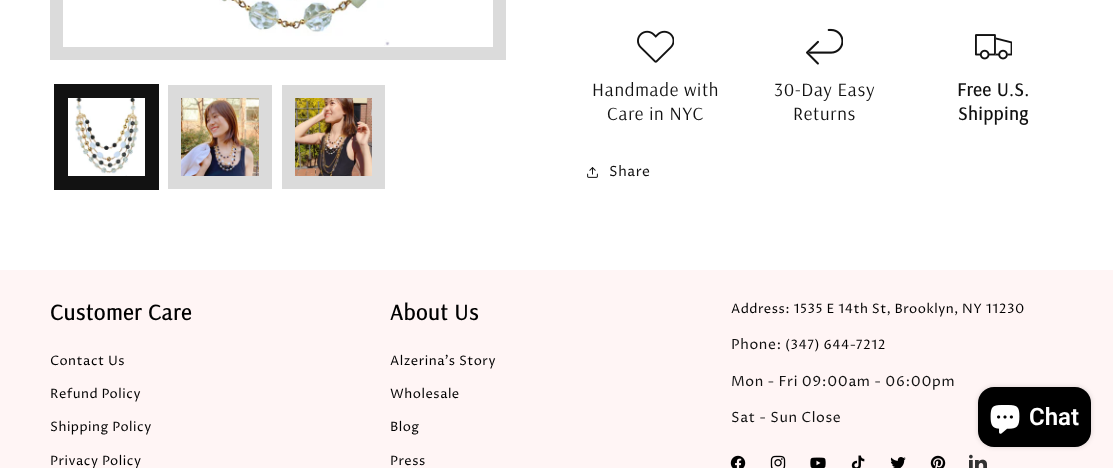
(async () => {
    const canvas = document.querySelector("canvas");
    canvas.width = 1113;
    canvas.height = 468;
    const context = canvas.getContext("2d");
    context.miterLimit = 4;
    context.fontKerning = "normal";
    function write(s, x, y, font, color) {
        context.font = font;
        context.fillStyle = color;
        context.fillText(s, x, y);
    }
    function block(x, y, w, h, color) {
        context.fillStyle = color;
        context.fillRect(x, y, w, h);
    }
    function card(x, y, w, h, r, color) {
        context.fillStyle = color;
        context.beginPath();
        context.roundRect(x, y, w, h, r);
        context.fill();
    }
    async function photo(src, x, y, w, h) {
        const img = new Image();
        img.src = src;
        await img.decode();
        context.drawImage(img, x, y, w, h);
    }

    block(0, 0, 1113, 468, "rgb(255, 255, 255)");
    context.strokeStyle = "rgb(219, 219, 219)";
    context.lineWidth = 13;
    context.strokeRect(56.5, -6.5, 443, 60);
    await photo("media/1.png", 219, 0, 171, 46);
    context.strokeStyle = "rgb(18, 18, 18)";
    context.lineWidth = 1;
    context.strokeRect(54.5, 84.5, 104, 105);
    context.lineWidth = 13;
    context.strokeRect(61.5, 91.5, 90, 91);
    await photo("media/2.png", 75, 98, 64, 78);
    context.strokeStyle = "rgb(219, 219, 219)";
    context.strokeRect(174.5, 91.5, 91, 91);
    await photo("media/3.png", 181, 98, 78, 78);
    context.strokeRect(288.5, 91.5, 90, 91);
    await photo("media/4.png", 295, 98, 77, 78);
    await photo("media/5.png", 637, 30, 37, 33);
    context.letterSpacing = "0.75px";
    write("Handmade with", 592, 96, "18.75px Arsenal", "rgb(18, 18, 18)");
    write("Care in NYC", 607, 120, "18.75px Arsenal", "rgb(18, 18, 18)");
    await photo("media/6.png", 806, 28, 37, 37);
    write("30-Day Easy", 774, 96, "18.75px Arsenal", "rgb(18, 18, 18)");
    write("Returns", 793, 120, "18.75px Arsenal", "rgb(18, 18, 18)");
    await photo("media/7.png", 975, 34, 37, 26);
    write("Free U.S.", 957, 96, "bold 18.75px Arsenal", "rgb(18, 18, 18)");
    write("Shipping", 958, 120, "bold 18.75px Arsenal", "rgb(18, 18, 18)");
    await photo("media/8.png", 587, 167, 11, 11);
    context.letterSpacing = "0.6px";
    write("Share", 609, 176, "14px Proza Libre", "rgb(18, 18, 18)");
    block(0, 270, 1113, 198, "rgb(255, 245, 245)");
    context.letterSpacing = "0.75px";
    write("Customer Care", 50, 320, "bold 22.5px Arsenal", "rgb(0, 0, 0)");
    context.letterSpacing = "0.5px";
    write("Contact Us", 50, 365, "13px Proza Libre", "rgb(0, 0, 0)");
    write("Refund Policy", 50, 398, "13px Proza Libre", "rgb(0, 0, 0)");
    write("Shipping Policy", 50, 431, "13px Proza Libre", "rgb(0, 0, 0)");
    write("Privacy Policy", 50, 465, "13px Proza Libre", "rgb(0, 0, 0)");
    context.letterSpacing = "0.75px";
    write("About Us", 390, 320, "bold 22.5px Arsenal", "rgb(0, 0, 0)");
    context.letterSpacing = "0.5px";
    write("Alzerina's Story", 390, 365, "13px Proza Libre", "rgb(0, 0, 0)");
    write("Wholesale", 390, 398, "13px Proza Libre", "rgb(0, 0, 0)");
    write("Blog", 390, 431, "13px Proza Libre", "rgb(0, 0, 0)");
    write("Press", 390, 465, "13px Proza Libre", "rgb(0, 0, 0)");
    write("Address: 1535 E 14th St, Brooklyn, NY 11230", 731, 313, "13px Proza Libre", "rgb(0, 0, 0)");
    context.letterSpacing = "0.6px";
    write("Phone:", 731, 349, "14px Proza Libre", "rgb(18, 18, 18)");
    context.letterSpacing = "0.5px";
    write("(347) 644-7212", 785, 349, "13px Proza Libre", "rgb(0, 0, 0)");
    context.letterSpacing = "0.6px";
    write("Mon - Fri 09:00am - 06:00pm", 731, 386, "14px Proza Libre", "rgb(18, 18, 18)");
    write("Sat - Sun Close", 731, 422, "14px Proza Libre", "rgb(18, 18, 18)");
    await photo("media/9.png", 730, 455, 16, 13);
    await photo("media/10.png", 770, 455, 16, 13);
    await photo("media/11.png", 810, 457, 16, 11);
    await photo("media/12.png", 851, 455, 14, 13);
    await photo("media/13.png", 890, 457, 16, 11);
    await photo("media/14.png", 930, 455, 16, 13);
    await photo("media/15.png", 969, 454, 18, 14);
    context.fillStyle = "rgba(0, 0, 0, 0.15)";
    context.filter = "blur(2.5px)";
    context.beginPath();
    context.roundRect(978, 387, 113, 60, 16);
    context.fill();
    context.filter = "none";
    card(978, 387, 113, 60, 16, "rgb(0, 0, 0)");
    await photo("media/16.png", 990, 405, 30, 29);
    context.letterSpacing = "0px";
    write("Chat", 1029, 425, "600 24px Roboto", "rgb(255, 255, 255)");
})();
